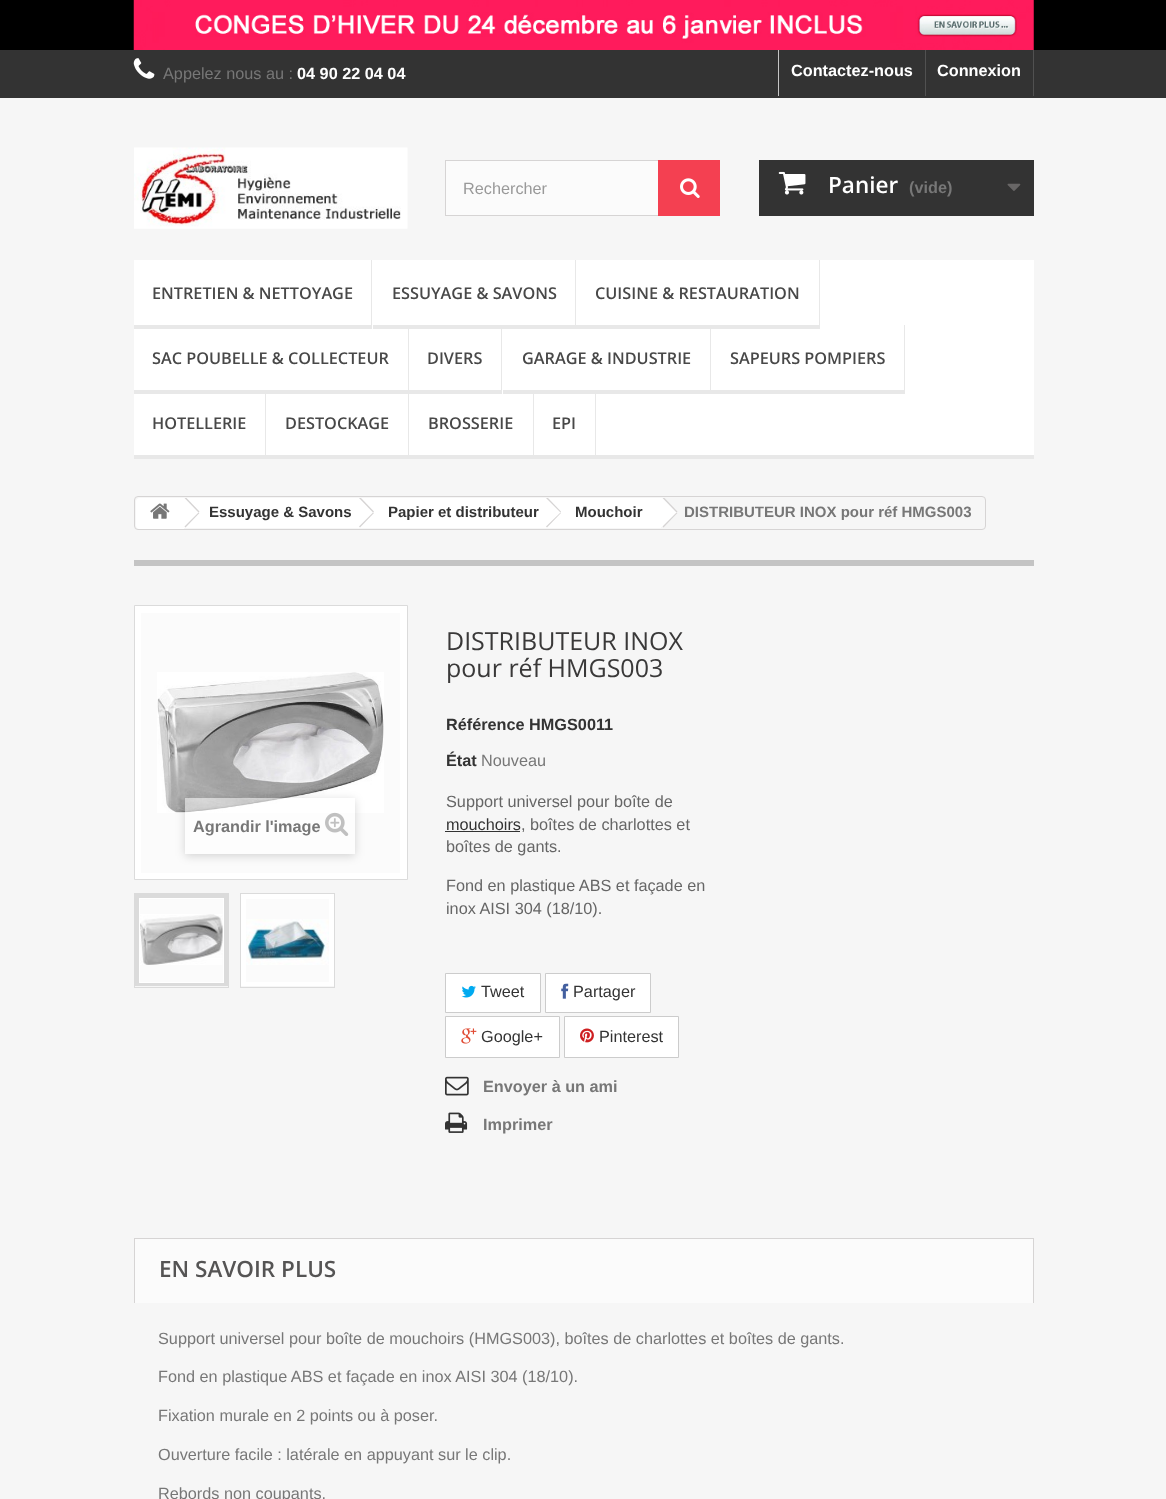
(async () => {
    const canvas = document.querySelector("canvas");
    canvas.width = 1166;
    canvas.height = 1499;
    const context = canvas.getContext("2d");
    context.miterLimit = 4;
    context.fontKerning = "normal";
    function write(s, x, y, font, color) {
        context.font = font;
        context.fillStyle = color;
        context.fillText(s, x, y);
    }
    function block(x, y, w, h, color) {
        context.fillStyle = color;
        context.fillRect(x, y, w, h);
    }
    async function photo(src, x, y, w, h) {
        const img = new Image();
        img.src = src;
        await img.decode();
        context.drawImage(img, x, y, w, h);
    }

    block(0, 0, 1166, 1499, "rgb(246, 246, 246)");
    block(0, 0, 1166, 50, "rgb(0, 0, 0)");
    await photo("media/1.png", 133, 0, 901, 50);
    block(0, 50, 1166, 48, "rgb(51, 51, 51)");
    await photo("media/2.png", 133, 58, 22, 21);
    write("Appelez nous au :", 163, 79, "16.25px Liberation Sans", "rgb(119, 119, 119)");
    write("04 90 22 04 04", 297, 79, "bold 16.25px Liberation Sans", "rgb(255, 255, 255)");
    block(778, 50, 1, 46, "rgb(198, 198, 198)");
    write("Contactez-nous", 791, 76, "bold 16.25px Liberation Sans", "rgb(255, 255, 255)");
    block(1033, 50, 1, 46, "rgb(81, 81, 81)");
    block(925, 50, 1, 46, "rgb(81, 81, 81)");
    write("Connexion", 937, 76, "bold 16.25px Liberation Sans", "rgb(255, 255, 255)");
    await photo("media/3.png", 134, 147, 274, 82);
    block(446, 161, 212, 54, "rgb(251, 251, 251)");
    context.strokeStyle = "rgb(214, 212, 212)";
    context.strokeRect(445.5, 160.5, 274, 55);
    write("Rechercher", 463, 194, "16.25px Liberation Sans", "rgb(153, 153, 153)");
    block(658, 160, 62, 56, "rgb(244, 64, 81)");
    await photo("media/4.png", 680, 178, 20, 20);
    block(759, 160, 275, 56, "rgb(51, 51, 51)");
    await photo("media/5.png", 778, 171, 28, 24);
    write("Panier", 828, 193, "600 22.5px Open Sans", "rgb(255, 255, 255)");
    write("(vide)", 909, 193, "bold 16.25px Liberation Sans", "rgb(119, 119, 119)");
    await photo("media/6.png", 1007, 183, 14, 8);
    block(134, 260, 900, 195, "rgb(255, 255, 255)");
    block(134, 455, 900, 4, "rgb(232, 232, 232)");
    block(371, 260, 1, 69, "rgb(232, 232, 232)");
    block(134, 325, 237, 4, "rgb(232, 232, 232)");
    write("ENTRETIEN & NETTOYAGE", 152, 299, "600 16.25px Open Sans", "rgb(72, 72, 72)");
    block(575, 260, 1, 69, "rgb(232, 232, 232)");
    block(373, 325, 202, 4, "rgb(232, 232, 232)");
    write("ESSUYAGE & SAVONS", 392, 299, "600 16.25px Open Sans", "rgb(72, 72, 72)");
    block(819, 260, 1, 69, "rgb(232, 232, 232)");
    block(576, 325, 243, 4, "rgb(232, 232, 232)");
    write("CUISINE & RESTAURATION", 595, 299, "600 16.25px Open Sans", "rgb(72, 72, 72)");
    block(408, 325, 1, 134, "rgb(232, 232, 232)");
    block(134, 390, 274, 4, "rgb(232, 232, 232)");
    write("SAC POUBELLE & COLLECTEUR", 152, 364, "600 16.25px Open Sans", "rgb(72, 72, 72)");
    block(501, 325, 1, 69, "rgb(232, 232, 232)");
    block(409, 390, 92, 4, "rgb(232, 232, 232)");
    write("DIVERS", 427, 364, "600 16.25px Open Sans", "rgb(72, 72, 72)");
    block(710, 325, 1, 69, "rgb(232, 232, 232)");
    block(503, 390, 207, 4, "rgb(232, 232, 232)");
    write("GARAGE & INDUSTRIE", 522, 364, "600 16.25px Open Sans", "rgb(72, 72, 72)");
    block(904, 325, 1, 69, "rgb(232, 232, 232)");
    block(711, 390, 193, 4, "rgb(232, 232, 232)");
    write("SAPEURS POMPIERS", 730, 364, "600 16.25px Open Sans", "rgb(72, 72, 72)");
    block(265, 390, 1, 69, "rgb(232, 232, 232)");
    write("HOTELLERIE", 152, 429, "600 16.25px Open Sans", "rgb(72, 72, 72)");
    write("DESTOCKAGE", 285, 429, "600 16.25px Open Sans", "rgb(72, 72, 72)");
    block(533, 390, 1, 69, "rgb(232, 232, 232)");
    write("BROSSERIE", 428, 429, "600 16.25px Open Sans", "rgb(72, 72, 72)");
    block(595, 390, 1, 69, "rgb(232, 232, 232)");
    write("EPI", 552, 429, "600 16.25px Open Sans", "rgb(72, 72, 72)");
    context.beginPath();
    context.roundRect(134.5, 496.5, 851, 33, 3.5);
    context.stroke();
    context.fillStyle = "rgb(255, 255, 255)";
    context.beginPath();
    context.roundRect(136, 498, 48, 31, [4, 0, 0, 4]);
    context.fill();
    await photo("media/7.png", 150, 503, 20, 16);
    block(184, 498, 176, 30, "rgb(255, 255, 255)");
    context.fillStyle = "rgb(214, 212, 212)";
    context.beginPath();
    context.moveTo(186.5, 498);
    context.lineTo(199.5, 511.5);
    context.lineTo(198.5, 512.5);
    context.lineTo(184.5, 498);
    context.closePath();
    context.fill();
    context.beginPath();
    context.moveTo(198.5, 512.5);
    context.lineTo(199.5, 513);
    context.lineTo(185.5, 527.5);
    context.lineTo(184.5, 526.5);
    context.closePath();
    context.fill();
    write("Essuyage & Savons", 209, 517, "bold 15px Liberation Sans", "rgb(51, 51, 51)");
    context.fillStyle = "rgb(255, 255, 255)";
    context.beginPath();
    context.moveTo(373.5, 498);
    context.lineTo(370, 498);
    context.lineTo(357.5, 510.5);
    context.bezierCurveTo(356.5, 511.5, 356.5, 513, 357.5, 514);
    context.lineTo(370, 526.5);
    context.bezierCurveTo(371, 527.5, 372.5, 527.5, 373.5, 526.5);
    context.lineTo(385.5, 514);
    context.bezierCurveTo(386.5, 513, 386.5, 511.5, 385.5, 510.5);
    context.closePath();
    context.fill();
    block(360, 498, 188, 30, "rgb(255, 255, 255)");
    context.fillStyle = "rgb(214, 212, 212)";
    context.beginPath();
    context.moveTo(361, 498);
    context.lineTo(374, 511.5);
    context.lineTo(373, 512.5);
    context.lineTo(359, 498);
    context.closePath();
    context.fill();
    context.beginPath();
    context.moveTo(373, 512.5);
    context.lineTo(374, 513);
    context.lineTo(360, 527.5);
    context.lineTo(359, 526.5);
    context.closePath();
    context.fill();
    write("Papier et distributeur", 388, 517, "bold 15px Liberation Sans", "rgb(51, 51, 51)");
    context.fillStyle = "rgb(255, 255, 255)";
    context.beginPath();
    context.moveTo(560.5, 498);
    context.lineTo(557, 498);
    context.lineTo(544.5, 510.5);
    context.bezierCurveTo(543.5, 511.5, 543.5, 513, 544.5, 514);
    context.lineTo(557, 526.5);
    context.bezierCurveTo(558, 527.5, 559.5, 527.5, 560.5, 526.5);
    context.lineTo(573, 514);
    context.bezierCurveTo(574, 513, 574, 511.5, 573, 510.5);
    context.closePath();
    context.fill();
    block(548, 498, 113, 30, "rgb(255, 255, 255)");
    context.fillStyle = "rgb(214, 212, 212)";
    context.beginPath();
    context.moveTo(548, 498);
    context.lineTo(561, 511.5);
    context.lineTo(560.5, 512.5);
    context.lineTo(546, 498);
    context.closePath();
    context.fill();
    context.beginPath();
    context.moveTo(560.5, 512.5);
    context.lineTo(561, 513);
    context.lineTo(547, 527.5);
    context.lineTo(546, 526.5);
    context.closePath();
    context.fill();
    write("Mouchoir", 575, 517, "bold 15px Liberation Sans", "rgb(51, 51, 51)");
    context.fillStyle = "rgb(255, 255, 255)";
    context.beginPath();
    context.moveTo(664, 498);
    context.lineTo(660.5, 498);
    context.lineTo(648.5, 510.5);
    context.bezierCurveTo(647.5, 511.5, 647.5, 513, 648.5, 514);
    context.lineTo(660.5, 526.5);
    context.bezierCurveTo(661.5, 527.5, 663, 527.5, 664, 526.5);
    context.lineTo(676.5, 514);
    context.bezierCurveTo(677.5, 513, 677.5, 511.5, 676.5, 510.5);
    context.closePath();
    context.fill();
    context.fillStyle = "rgb(214, 212, 212)";
    context.beginPath();
    context.moveTo(664.5, 498);
    context.lineTo(677.5, 511.5);
    context.lineTo(676.5, 512.5);
    context.lineTo(662.5, 498);
    context.closePath();
    context.fill();
    context.beginPath();
    context.moveTo(676.5, 512.5);
    context.lineTo(677.5, 513);
    context.lineTo(663.5, 527.5);
    context.lineTo(662.5, 526.5);
    context.closePath();
    context.fill();
    write("DISTRIBUTEUR INOX pour réf HMGS003", 684, 517, "bold 15px Liberation Sans", "rgb(119, 119, 119)");
    block(134, 560, 900, 6, "rgb(196, 196, 196)");
    context.fillStyle = "rgb(255, 255, 255)";
    context.beginPath();
    context.rect(134.5, 605.5, 273, 274);
    context.fill();
    context.strokeStyle = "rgb(219, 219, 219)";
    context.stroke();
    block(141, 613, 259, 260, "rgb(251, 251, 251)");
    await photo("media/8.png", 157, 672, 227, 141);
    context.save();
    context.beginPath();
    context.moveTo(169, 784);
    context.lineTo(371, 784);
    context.lineTo(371, 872);
    context.lineTo(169, 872);
    context.closePath();
    context.moveTo(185, 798);
    context.lineTo(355, 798);
    context.lineTo(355, 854);
    context.lineTo(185, 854);
    context.closePath();
    context.clip("evenodd");
    context.fillStyle = "rgba(0, 0, 0, 0.16)";
    context.filter = "blur(5px)";
    context.beginPath();
    context.rect(185, 800, 170, 56);
    context.fill();
    context.filter = "none";
    context.restore();
    block(185, 798, 170, 56, "rgba(255, 255, 255, 0.5)");
    write("Agrandir l'image", 193, 832, "bold 16.25px Liberation Sans", "rgb(119, 119, 119)");
    await photo("media/9.png", 325, 812, 24, 24);
    context.strokeRect(134.5, 893.5, 94, 94);
    block(140, 899, 83, 83, "rgb(251, 251, 251)");
    context.lineWidth = 4;
    context.strokeRect(137, 896, 89, 88);
    context.strokeStyle = "rgb(255, 255, 255)";
    context.lineWidth = 1;
    context.strokeRect(139.5, 898.5, 84, 84);
    await photo("media/10.png", 140, 914, 83, 51);
    context.strokeStyle = "rgb(219, 219, 219)";
    context.strokeRect(240.5, 893.5, 94, 94);
    block(246, 899, 83, 83, "rgb(251, 251, 251)");
    context.strokeStyle = "rgb(255, 255, 255)";
    context.lineWidth = 4;
    context.strokeRect(243, 896, 89, 88);
    context.lineWidth = 1;
    context.strokeRect(245.5, 898.5, 84, 84);
    await photo("media/11.png", 246, 919, 83, 46);
    write("DISTRIBUTEUR INOX", 446, 650, "25px Open Sans", "rgb(58, 57, 57)");
    write("pour réf HMGS003", 446, 677, "25px Open Sans", "rgb(58, 57, 57)");
    write("Référence HMGS0011", 446, 730, "bold 16.25px Liberation Sans", "rgb(51, 51, 51)");
    write("État", 446, 766, "bold 16.25px Liberation Sans", "rgb(51, 51, 51)");
    write("Nouveau", 481, 766, "16.25px Liberation Sans", "rgb(119, 119, 119)");
    write("Support universel pour boîte de", 446, 807, "16.25px Liberation Sans", "rgb(102, 102, 102)");
    write("mouchoirs", 446, 830, "16.25px Liberation Sans", "rgb(51, 51, 51)");
    block(445, 831, 75, 1, "rgb(51, 51, 51)");
    write(", boîtes de charlottes et", 521, 830, "16.25px Liberation Sans", "rgb(102, 102, 102)");
    write("boîtes de gants.", 446, 852, "16.25px Liberation Sans", "rgb(102, 102, 102)");
    write("Fond en plastique ABS et façade en", 446, 891, "16.25px Liberation Sans", "rgb(102, 102, 102)");
    write("inox AISI 304 (18/10).", 446, 914, "16.25px Liberation Sans", "rgb(102, 102, 102)");
    context.fillStyle = "rgb(255, 255, 255)";
    context.beginPath();
    context.rect(445.5, 973.5, 95, 39);
    context.fill();
    context.strokeStyle = "rgb(204, 204, 204)";
    context.stroke();
    await photo("media/12.png", 461, 985, 15, 13);
    write("Tweet", 481, 997, "16.25px Liberation Sans", "rgb(51, 51, 51)");
    context.fillStyle = "rgb(255, 255, 255)";
    context.beginPath();
    context.rect(545.5, 973.5, 105, 39);
    context.fill();
    context.stroke();
    await photo("media/13.png", 561, 983, 8, 16);
    write("Partager", 573, 997, "16.25px Liberation Sans", "rgb(51, 51, 51)");
    context.fillStyle = "rgb(255, 255, 255)";
    context.beginPath();
    context.rect(445.5, 1016.5, 114, 41);
    context.fill();
    context.stroke();
    await photo("media/14.png", 461, 1028, 16, 16);
    write("Google+", 481, 1042, "16.25px Liberation Sans", "rgb(51, 51, 51)");
    context.fillStyle = "rgb(255, 255, 255)";
    context.beginPath();
    context.rect(564.5, 1016.5, 114, 41);
    context.fill();
    context.stroke();
    await photo("media/15.png", 580, 1028, 14, 15);
    write("Pinterest", 599, 1042, "16.25px Liberation Sans", "rgb(51, 51, 51)");
    await photo("media/16.png", 445, 1076, 24, 20);
    write("Envoyer à un ami", 483, 1092, "bold 16.25px Liberation Sans", "rgb(119, 119, 119)");
    await photo("media/17.png", 445, 1112, 23, 21);
    write("Imprimer", 483, 1130, "bold 16.25px Liberation Sans", "rgb(119, 119, 119)");
    block(135, 1239, 898, 64, "rgb(251, 251, 251)");
    block(134, 1238, 900, 1, "rgb(214, 212, 212)");
    block(1033, 1238, 1, 65, "rgb(214, 212, 212)");
    block(134, 1238, 1, 65, "rgb(214, 212, 212)");
    write("EN SAVOIR PLUS", 159, 1277, "600 22.5px Open Sans", "rgb(85, 84, 84)");
    write("Support universel pour boîte de mouchoirs (HMGS003), boîtes de charlottes et boîtes de gants.", 158, 1344, "16.25px Liberation Sans", "rgb(119, 119, 119)");
    write("Fond en plastique ABS et façade en inox AISI 304 (18/10).", 158, 1382, "16.25px Liberation Sans", "rgb(119, 119, 119)");
    write("Fixation murale en 2 points ou à poser.", 158, 1421, "16.25px Liberation Sans", "rgb(119, 119, 119)");
    write("Ouverture facile : latérale en appuyant sur le clip.", 158, 1460, "16.25px Liberation Sans", "rgb(119, 119, 119)");
    write("Rebords non coupants.", 158, 1499, "16.25px Liberation Sans", "rgb(119, 119, 119)");
})();
